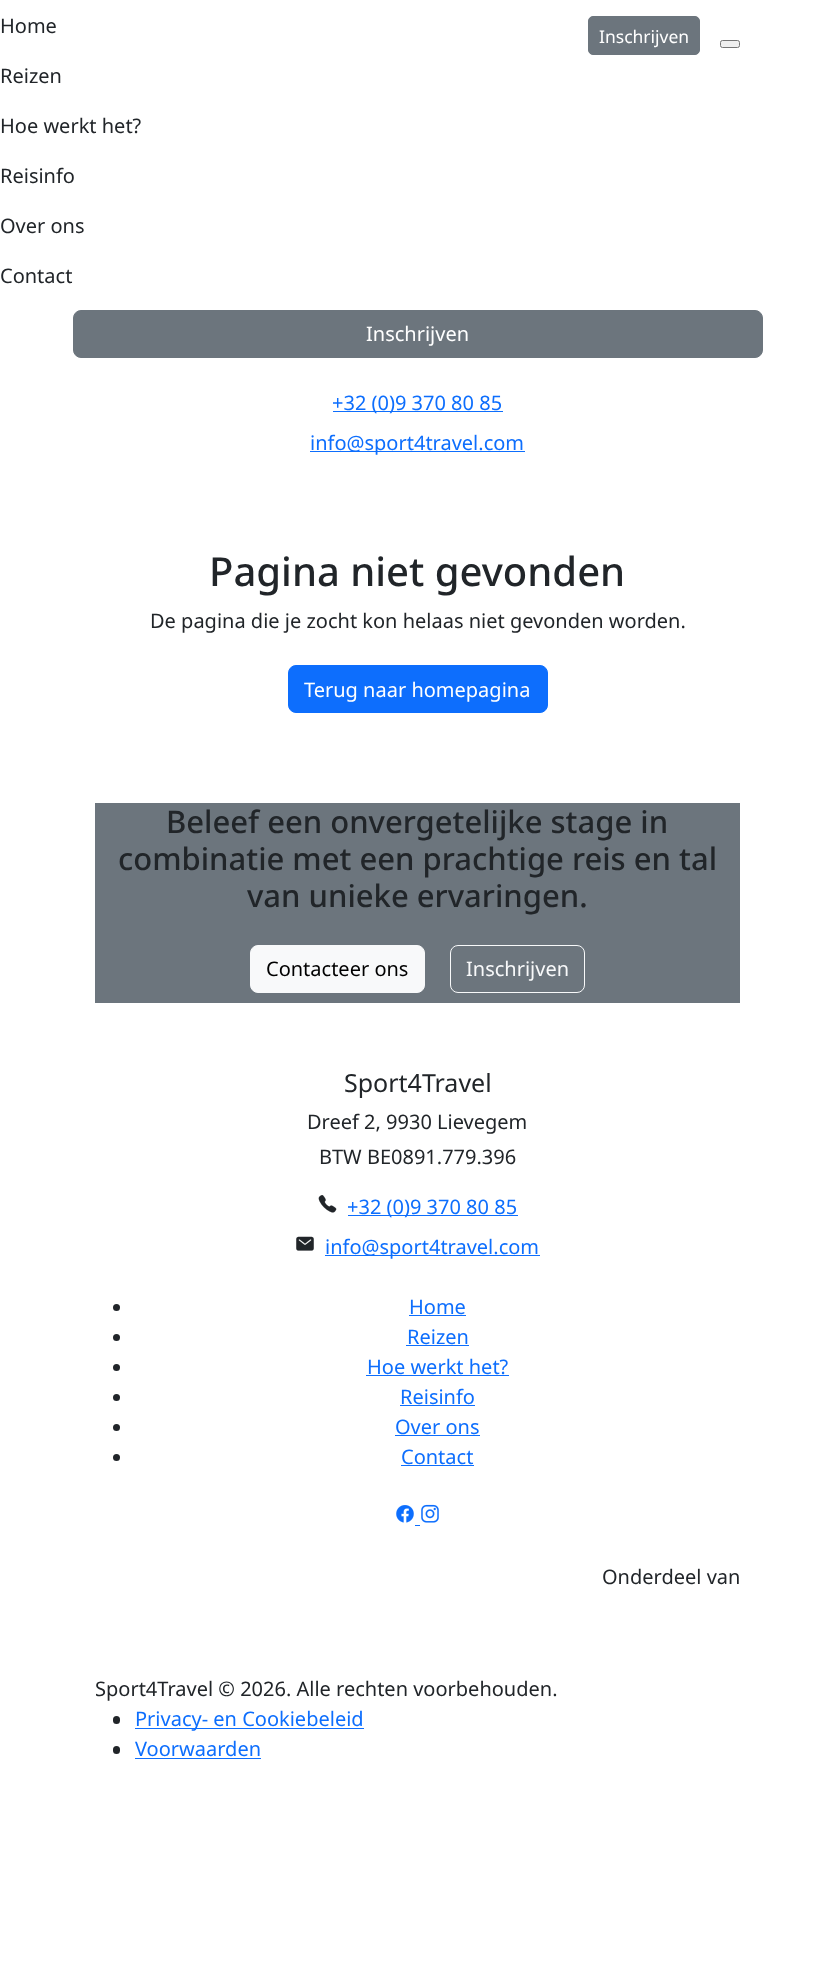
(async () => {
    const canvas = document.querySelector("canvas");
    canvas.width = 835;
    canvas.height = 1984;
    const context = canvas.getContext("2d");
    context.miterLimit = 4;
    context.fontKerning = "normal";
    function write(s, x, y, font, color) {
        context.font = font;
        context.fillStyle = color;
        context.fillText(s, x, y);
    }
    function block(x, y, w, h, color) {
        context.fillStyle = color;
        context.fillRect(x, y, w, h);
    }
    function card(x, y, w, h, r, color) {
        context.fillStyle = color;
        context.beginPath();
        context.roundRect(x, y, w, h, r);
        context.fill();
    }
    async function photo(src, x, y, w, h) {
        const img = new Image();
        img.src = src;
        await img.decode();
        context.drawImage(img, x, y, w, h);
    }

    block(0, 0, 835, 1984, "rgb(255, 255, 255)");
    write("Home", 0, 33, "20px Noto Sans", "rgb(33, 37, 41)");
    write("Reizen", 0, 83, "20px Noto Sans", "rgb(33, 37, 41)");
    write("Hoe werkt het?", 0, 133, "20px Noto Sans", "rgb(33, 37, 41)");
    write("Reisinfo", 0, 183, "20px Noto Sans", "rgb(33, 37, 41)");
    write("Over ons", 0, 233, "20px Noto Sans", "rgb(33, 37, 41)");
    write("Contact", 0, 283, "20px Noto Sans", "rgb(33, 37, 41)");
    context.fillStyle = "rgb(108, 117, 125)";
    context.beginPath();
    context.roundRect(73.5, 310.5, 689, 47, 7.5);
    context.fill();
    context.strokeStyle = "rgb(108, 117, 125)";
    context.stroke();
    write("Inschrijven", 366, 341, "20px Noto Sans", "rgb(255, 255, 255)");
    block(333, 411, 170, 1, "rgb(13, 110, 253)");
    write("+32 (0)9 370 80 85", 332, 410, "20px Noto Sans", "rgb(13, 110, 253)");
    block(310, 451, 215, 1, "rgb(13, 110, 253)");
    write("info@sport4travel.com", 310, 450, "20px Noto Sans", "rgb(13, 110, 253)");
    context.fillStyle = "rgb(108, 117, 125)";
    context.beginPath();
    context.roundRect(588.5, 16.5, 111, 38, 4.5);
    context.fill();
    context.stroke();
    write("Inschrijven", 599, 43, "17.5px Noto Sans", "rgb(255, 255, 255)");
    context.fillStyle = "rgb(239, 239, 239)";
    context.beginPath();
    context.roundRect(720.5, 40.5, 19, 7, 2);
    context.fill();
    context.strokeStyle = "rgb(118, 118, 118)";
    context.stroke();
    write("Pagina niet gevonden", 209, 586, "500 40px Noto Sans", "rgb(33, 37, 41)");
    write("De pagina die je zocht kon helaas niet gevonden worden.", 150, 628, "20px Noto Sans", "rgb(33, 37, 41)");
    context.fillStyle = "rgb(13, 110, 253)";
    context.beginPath();
    context.roundRect(288.5, 665.5, 259, 47, 7.5);
    context.fill();
    context.strokeStyle = "rgb(13, 110, 253)";
    context.stroke();
    write("Terug naar homepagina", 304, 697, "20px Noto Sans", "rgb(255, 255, 255)");
    block(95, 803, 645, 200, "rgb(108, 117, 125)");
    write("Beleef een onvergetelijke stage in", 166, 833, "500 31px Noto Sans", "rgb(33, 37, 41)");
    write("combinatie met een prachtige reis en tal", 118, 870, "500 31px Noto Sans", "rgb(33, 37, 41)");
    write("van unieke ervaringen.", 247, 907, "500 31px Noto Sans", "rgb(33, 37, 41)");
    context.fillStyle = "rgb(248, 249, 250)";
    context.beginPath();
    context.roundRect(250.5, 945.5, 174, 47, 7.5);
    context.fill();
    context.strokeStyle = "rgb(248, 249, 250)";
    context.stroke();
    write("Contacteer ons", 266, 976, "20px Noto Sans", "rgb(0, 0, 0)");
    context.beginPath();
    context.roundRect(450.5, 945.5, 134, 47, 7.5);
    context.stroke();
    write("Inschrijven", 466, 976, "20px Noto Sans", "rgb(248, 249, 250)");
    write("Sport4Travel", 344, 1092, "25px Noto Sans", "rgb(33, 37, 41)");
    write("Dreef 2, 9930 Lievegem", 307, 1129, "20px Noto Sans", "rgb(33, 37, 41)");
    write("BTW BE0891.779.396", 319, 1164, "20px Noto Sans", "rgb(33, 37, 41)");
    await photo("media/1.png", 318, 1195, 19, 18);
    block(348, 1215, 170, 1, "rgb(13, 110, 253)");
    write("+32 (0)9 370 80 85", 347, 1214, "20px Noto Sans", "rgb(13, 110, 253)");
    await photo("media/2.png", 296, 1236, 18, 15);
    block(325, 1255, 215, 1, "rgb(13, 110, 253)");
    write("info@sport4travel.com", 325, 1254, "20px Noto Sans", "rgb(13, 110, 253)");
    context.fillStyle = "rgb(33, 37, 41)";
    context.beginPath();
    context.arc(116.5, 1307.5, 3.5, 0, Math.PI * 2);
    context.fill();
    write("Home", 409, 1314, "20px Noto Sans", "rgb(13, 110, 253)");
    block(409, 1315, 57, 1, "rgb(13, 110, 253)");
    context.fillStyle = "rgb(33, 37, 41)";
    context.beginPath();
    context.arc(116.5, 1337.5, 3.5, 0, Math.PI * 2);
    context.fill();
    write("Reizen", 407, 1344, "20px Noto Sans", "rgb(13, 110, 253)");
    block(406, 1345, 63, 1, "rgb(13, 110, 253)");
    context.fillStyle = "rgb(33, 37, 41)";
    context.beginPath();
    context.arc(116.5, 1367.5, 3.5, 0, Math.PI * 2);
    context.fill();
    write("Hoe werkt het?", 367, 1374, "20px Noto Sans", "rgb(13, 110, 253)");
    block(366, 1375, 143, 1, "rgb(13, 110, 253)");
    context.fillStyle = "rgb(33, 37, 41)";
    context.beginPath();
    context.arc(116.5, 1397.5, 3.5, 0, Math.PI * 2);
    context.fill();
    write("Reisinfo", 400, 1404, "20px Noto Sans", "rgb(13, 110, 253)");
    block(400, 1405, 75, 1, "rgb(13, 110, 253)");
    context.fillStyle = "rgb(33, 37, 41)";
    context.beginPath();
    context.arc(116.5, 1427.5, 3.5, 0, Math.PI * 2);
    context.fill();
    write("Over ons", 395, 1434, "20px Noto Sans", "rgb(13, 110, 253)");
    block(395, 1435, 85, 1, "rgb(13, 110, 253)");
    context.fillStyle = "rgb(33, 37, 41)";
    context.beginPath();
    context.arc(116.5, 1457.5, 3.5, 0, Math.PI * 2);
    context.fill();
    write("Contact", 401, 1464, "20px Noto Sans", "rgb(13, 110, 253)");
    block(401, 1465, 73, 1, "rgb(13, 110, 253)");
    await photo("media/3.png", 396, 1505, 18, 18);
    block(415, 1525, 5, 1, "rgb(13, 110, 253)");
    await photo("media/4.png", 421, 1504, 18, 19);
    write("Onderdeel van", 602, 1584, "20px Noto Sans", "rgb(33, 37, 41)");
    write("Sport4Travel © 2026. Alle rechten voorbehouden.", 95, 1696, "20px Noto Sans", "rgb(33, 37, 41)");
    card(113, 1716, 7, 8, 3.5, "rgb(33, 37, 41)");
    block(135, 1728, 229, 1, "rgb(13, 110, 253)");
    write("Privacy- en Cookiebeleid", 135, 1726, "20px Noto Sans", "rgb(13, 110, 253)");
    card(113, 1746, 7, 8, 3.5, "rgb(33, 37, 41)");
    write("Voorwaarden", 135, 1756, "20px Noto Sans", "rgb(13, 110, 253)");
    block(135, 1758, 126, 1, "rgb(13, 110, 253)");
})();
